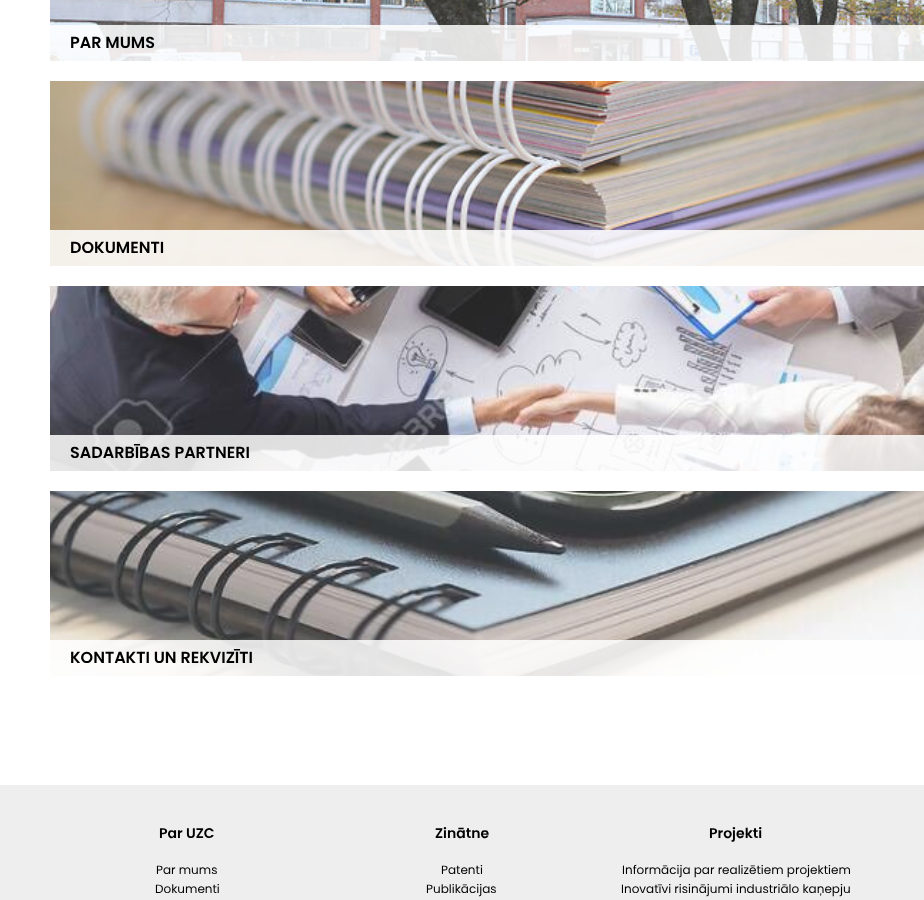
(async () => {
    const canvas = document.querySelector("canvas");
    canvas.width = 924;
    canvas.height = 900;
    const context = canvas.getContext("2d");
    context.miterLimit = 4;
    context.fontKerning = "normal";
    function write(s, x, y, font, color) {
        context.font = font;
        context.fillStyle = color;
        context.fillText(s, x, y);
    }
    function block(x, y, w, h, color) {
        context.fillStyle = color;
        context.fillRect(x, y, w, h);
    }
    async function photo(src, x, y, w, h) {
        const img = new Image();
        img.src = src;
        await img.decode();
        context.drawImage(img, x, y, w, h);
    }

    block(0, 0, 924, 900, "rgb(255, 255, 255)");
    await photo("media/1.png", 50, 0, 874, 61);
    block(50, 25, 874, 36, "rgba(255, 255, 255, 0.85)");
    write("PAR MUMS", 70, 48, "600 16px Poppins", "rgb(0, 0, 0)");
    await photo("media/2.png", 50, 81, 874, 185);
    block(50, 230, 874, 36, "rgba(255, 255, 255, 0.85)");
    write("DOKUMENTI", 70, 253, "600 16px Poppins", "rgb(0, 0, 0)");
    await photo("media/3.png", 50, 286, 874, 185);
    block(50, 435, 874, 36, "rgba(255, 255, 255, 0.85)");
    write("SADARBĪBAS PARTNERI", 70, 458, "600 16px Poppins", "rgb(0, 0, 0)");
    await photo("media/4.png", 50, 491, 874, 185);
    block(50, 640, 874, 36, "rgba(255, 255, 255, 0.85)");
    write("KONTAKTI UN REKVIZĪTI", 70, 663, "600 16px Poppins", "rgb(0, 0, 0)");
    block(0, 785, 924, 115, "rgb(238, 238, 238)");
    write("Par UZC", 159, 838, "600 14px Poppins", "rgb(0, 0, 0)");
    write("Par mums", 156, 874, "12px Poppins", "rgb(0, 0, 0)");
    write("Dokumenti", 155, 893, "12px Poppins", "rgb(0, 0, 0)");
    write("Zinātne", 435, 838, "600 14px Poppins", "rgb(0, 0, 0)");
    write("Patenti", 441, 874, "12px Poppins", "rgb(0, 0, 0)");
    write("Publikācijas", 426, 893, "12px Poppins", "rgb(0, 0, 0)");
    write("Projekti", 709, 838, "600 14px Poppins", "rgb(0, 0, 0)");
    write("Informācija par realizētiem projektiem", 622, 874, "12px Poppins", "rgb(0, 0, 0)");
    write("Inovatīvi risinājumi industriālo kaņepju", 621, 893, "12px Poppins", "rgb(0, 0, 0)");
})();
